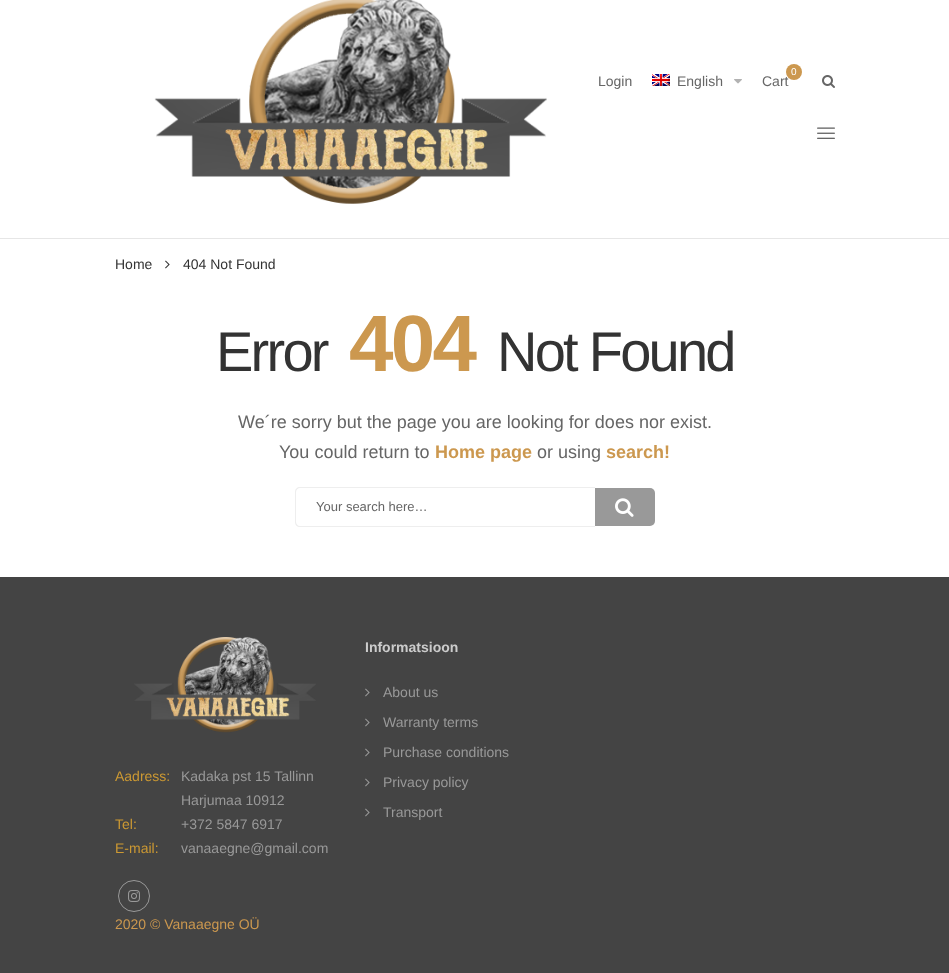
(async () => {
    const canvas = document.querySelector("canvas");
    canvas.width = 949;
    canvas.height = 973;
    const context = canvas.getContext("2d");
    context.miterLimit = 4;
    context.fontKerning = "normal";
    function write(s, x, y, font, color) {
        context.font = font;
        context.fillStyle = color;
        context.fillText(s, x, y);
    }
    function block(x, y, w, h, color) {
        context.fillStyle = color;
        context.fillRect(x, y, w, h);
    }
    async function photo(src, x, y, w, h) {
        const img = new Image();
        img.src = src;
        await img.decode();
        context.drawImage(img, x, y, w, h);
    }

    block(0, 0, 949, 973, "rgb(255, 255, 255)");
    block(0, 238, 949, 1, "rgb(230, 230, 230)");
    await photo("media/1.png", 154, 0, 393, 204);
    write("Login", 598, 86, "14px Liberation Sans", "rgb(102, 102, 102)");
    await photo("media/2.png", 652, 74, 18, 12);
    write("English", 677, 86, "14px Liberation Sans", "rgb(102, 102, 102)");
    await photo("media/3.png", 734, 79, 8, 5);
    write("Cart", 762, 86, "14px Liberation Sans", "rgb(102, 102, 102)");
    context.fillStyle = "rgb(204, 152, 79)";
    context.beginPath();
    context.arc(794, 72, 8, 0, Math.PI * 2);
    context.fill();
    write("0", 791, 75, "10px Liberation Sans", "rgb(255, 255, 255)");
    await photo("media/4.png", 822, 75, 13, 13);
    await photo("media/5.png", 817, 127, 18, 12);
    write("Home", 115, 269, "14px Liberation Sans", "rgb(51, 51, 51)");
    await photo("media/6.png", 165, 260, 5, 9);
    write("404 Not Found", 183, 269, "14px Liberation Sans", "rgb(51, 51, 51)");
    context.letterSpacing = "-2.75px";
    write("Error", 216, 371, "56px Liberation Sans", "rgb(51, 51, 51)");
    write("404", 349, 371, "bold 80px Liberation Sans", "rgb(204, 152, 79)");
    write("Not Found", 497, 371, "56px Liberation Sans", "rgb(51, 51, 51)");
    context.letterSpacing = "0px";
    write("We´re sorry but the page you are looking for does nor exist.", 238, 428, "18px Liberation Sans", "rgb(102, 102, 102)");
    write("You could return to", 279, 458, "18px Liberation Sans", "rgb(102, 102, 102)");
    write("Home page", 435, 458, "bold 18px Liberation Sans", "rgb(204, 152, 79)");
    write("or using", 537, 458, "18px Liberation Sans", "rgb(102, 102, 102)");
    write("search!", 606, 458, "bold 18px Liberation Sans", "rgb(204, 152, 79)");
    context.fillStyle = "rgb(238, 238, 238)";
    context.beginPath();
    context.moveTo(300, 487);
    context.lineTo(595, 487);
    context.lineTo(595, 527);
    context.lineTo(300, 527);
    context.bezierCurveTo(297, 527, 295, 525, 295, 522);
    context.lineTo(295, 492);
    context.bezierCurveTo(295, 489, 297, 487, 300, 487);
    context.closePath();
    context.moveTo(300, 488);
    context.lineTo(595, 488);
    context.lineTo(595, 526);
    context.lineTo(300, 526);
    context.bezierCurveTo(298, 526, 296, 524, 296, 522);
    context.lineTo(296, 492);
    context.bezierCurveTo(296, 490, 298, 488, 300, 488);
    context.closePath();
    context.fill("evenodd");
    write("Your search here…", 316, 511, "13px Liberation Sans", "rgb(102, 102, 102)");
    context.fillStyle = "rgb(153, 153, 153)";
    context.beginPath();
    context.roundRect(595, 488, 60, 38, [0, 5, 5, 0]);
    context.fill();
    await photo("media/7.png", 615, 498, 19, 19);
    block(0, 577, 949, 396, "rgb(68, 68, 68)");
    write("Informatsioon", 365, 652, "bold 14px Liberation Sans", "rgb(204, 204, 204)");
    await photo("media/8.png", 365, 688, 5, 9);
    write("About us", 383, 697, "14px Liberation Sans", "rgb(153, 153, 153)");
    await photo("media/8.png", 365, 718, 5, 9);
    write("Warranty terms", 383, 727, "14px Liberation Sans", "rgb(153, 153, 153)");
    await photo("media/8.png", 365, 748, 5, 9);
    write("Purchase conditions", 383, 757, "14px Liberation Sans", "rgb(153, 153, 153)");
    await photo("media/8.png", 365, 778, 5, 9);
    write("Privacy policy", 383, 787, "14px Liberation Sans", "rgb(153, 153, 153)");
    await photo("media/8.png", 365, 808, 5, 9);
    write("Transport", 383, 817, "14px Liberation Sans", "rgb(153, 153, 153)");
    await photo("media/9.png", 134, 637, 182, 96);
    write("Aadress:", 115, 781, "14px Liberation Sans", "rgb(204, 153, 51)");
    write("Kadaka pst 15 Tallinn", 181, 781, "14px Liberation Sans", "rgb(153, 153, 153)");
    write("Harjumaa 10912", 181, 805, "14px Liberation Sans", "rgb(153, 153, 153)");
    write("Tel:", 115, 829, "14px Liberation Sans", "rgb(204, 153, 51)");
    write("+372 5847 6917", 181, 829, "14px Liberation Sans", "rgb(153, 153, 153)");
    write("E-mail:", 115, 853, "14px Liberation Sans", "rgb(204, 153, 51)");
    write("vanaaegne@gmail.com", 181, 853, "14px Liberation Sans", "rgb(153, 153, 153)");
    context.beginPath();
    context.arc(134, 896, 15.5, 0, Math.PI * 2);
    context.strokeStyle = "rgb(153, 153, 153)";
    context.stroke();
    await photo("media/10.png", 128, 890, 12, 12);
    write("2020 © Vanaaegne OÜ", 115, 929, "14px Liberation Sans", "rgb(204, 152, 79)");
})();
